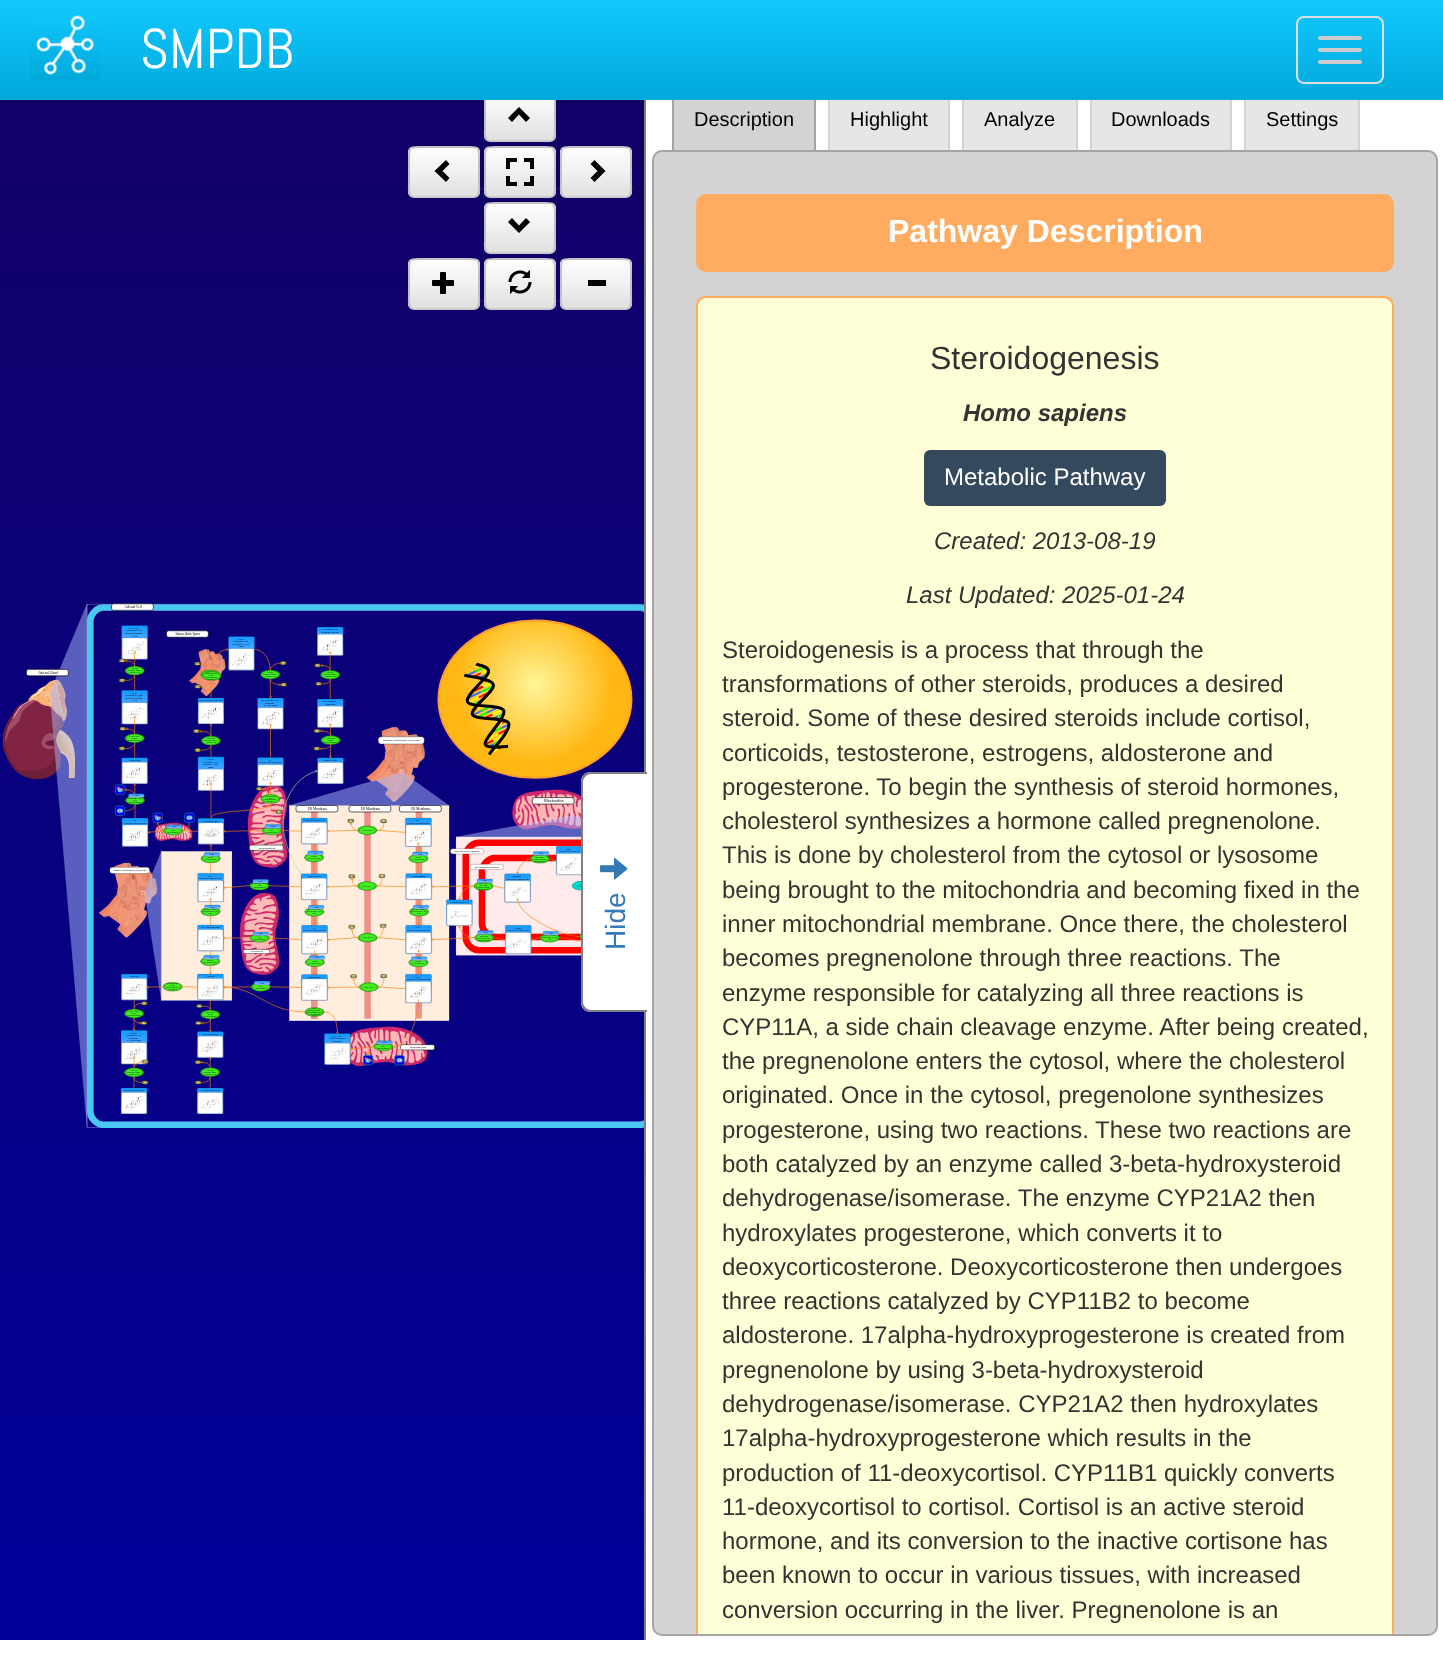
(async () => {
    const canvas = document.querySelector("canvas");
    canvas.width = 1443;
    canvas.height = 1657;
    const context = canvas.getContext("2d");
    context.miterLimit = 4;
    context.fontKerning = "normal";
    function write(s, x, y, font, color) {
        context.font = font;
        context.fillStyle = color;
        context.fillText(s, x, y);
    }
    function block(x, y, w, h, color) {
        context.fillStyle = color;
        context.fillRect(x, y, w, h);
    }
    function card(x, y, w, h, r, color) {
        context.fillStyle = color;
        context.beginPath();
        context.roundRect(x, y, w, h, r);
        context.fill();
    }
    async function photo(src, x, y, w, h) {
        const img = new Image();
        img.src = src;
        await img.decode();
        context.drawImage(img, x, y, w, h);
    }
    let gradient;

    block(0, 0, 1443, 1657, "rgb(255, 255, 255)");
    gradient = context.createLinearGradient(722, 78, 722, 1640);
    gradient.addColorStop(0, "rgb(17, 0, 102)");
    gradient.addColorStop(1, "rgb(0, 0, 153)");
    context.fillStyle = gradient;
    context.fillRect(0, 100, 644, 1540);
    context.save();
    context.beginPath();
    context.roundRect(484, 90, 72, 52, 6);
    context.clip();
    gradient = context.createLinearGradient(520, 92, 520, 140);
    gradient.addColorStop(0, "rgb(255, 255, 255)");
    gradient.addColorStop(1, "rgb(224, 224, 224)");
    context.fillStyle = gradient;
    context.fillRect(484, 100, 72, 40);
    context.restore();
    context.beginPath();
    context.moveTo(553.5, 139.5);
    context.bezierCurveTo(552.5, 140.5, 551.5, 141, 550, 141);
    context.lineTo(490, 141);
    context.bezierCurveTo(488.5, 141, 487.5, 140.5, 486.5, 139.5);
    context.strokeStyle = "rgb(204, 204, 204)";
    context.lineWidth = 2;
    context.stroke();
    context.beginPath();
    context.moveTo(486.5, 139.5);
    context.bezierCurveTo(484, 137, 485, 132, 485, 129.5);
    context.lineTo(485, 102.5);
    context.bezierCurveTo(485, 89, 486, 91, 500, 91);
    context.lineTo(540, 91);
    context.bezierCurveTo(554, 91, 555, 89, 555, 102.5);
    context.lineTo(555, 129.5);
    context.bezierCurveTo(555, 132, 556, 137, 553.5, 139.5);
    context.strokeStyle = "rgb(194, 194, 194)";
    context.stroke();
    block(674, 100, 140, 50, "rgb(211, 211, 211)");
    context.beginPath();
    context.roundRect(653, 151, 784, 1484, 9);
    context.fill();
    context.strokeStyle = "rgb(164, 164, 164)";
    context.stroke();
    context.strokeRect(673, 91, 142, 60);
    block(830, 100, 118, 50, "rgb(230, 230, 230)");
    context.fillStyle = "rgb(211, 211, 211)";
    context.beginPath();
    context.moveTo(836, 90);
    context.lineTo(942, 90);
    context.bezierCurveTo(946, 90, 950, 94, 950, 98);
    context.lineTo(950, 150);
    context.lineTo(828, 150);
    context.lineTo(828, 98);
    context.bezierCurveTo(828, 94, 832, 90, 836, 90);
    context.closePath();
    context.moveTo(836, 92);
    context.lineTo(942, 92);
    context.bezierCurveTo(945, 92, 948, 95, 948, 98);
    context.lineTo(948, 150);
    context.lineTo(830, 150);
    context.lineTo(830, 98);
    context.bezierCurveTo(830, 95, 833, 92, 836, 92);
    context.closePath();
    context.fill("evenodd");
    block(964, 100, 112, 50, "rgb(230, 230, 230)");
    context.fillStyle = "rgb(211, 211, 211)";
    context.beginPath();
    context.moveTo(970, 90);
    context.lineTo(1070, 90);
    context.bezierCurveTo(1074, 90, 1078, 94, 1078, 98);
    context.lineTo(1078, 150);
    context.lineTo(962, 150);
    context.lineTo(962, 98);
    context.bezierCurveTo(962, 94, 966, 90, 970, 90);
    context.closePath();
    context.moveTo(970, 92);
    context.lineTo(1070, 92);
    context.bezierCurveTo(1073, 92, 1076, 95, 1076, 98);
    context.lineTo(1076, 150);
    context.lineTo(964, 150);
    context.lineTo(964, 98);
    context.bezierCurveTo(964, 95, 967, 92, 970, 92);
    context.closePath();
    context.fill("evenodd");
    block(1092, 100, 138, 50, "rgb(230, 230, 230)");
    context.fillStyle = "rgb(211, 211, 211)";
    context.beginPath();
    context.moveTo(1098, 90);
    context.lineTo(1224, 90);
    context.bezierCurveTo(1228, 90, 1232, 94, 1232, 98);
    context.lineTo(1232, 150);
    context.lineTo(1090, 150);
    context.lineTo(1090, 98);
    context.bezierCurveTo(1090, 94, 1094, 90, 1098, 90);
    context.closePath();
    context.moveTo(1098, 92);
    context.lineTo(1224, 92);
    context.bezierCurveTo(1227, 92, 1230, 95, 1230, 98);
    context.lineTo(1230, 150);
    context.lineTo(1092, 150);
    context.lineTo(1092, 98);
    context.bezierCurveTo(1092, 95, 1095, 92, 1098, 92);
    context.closePath();
    context.fill("evenodd");
    block(1246, 100, 112, 50, "rgb(230, 230, 230)");
    context.fillStyle = "rgb(211, 211, 211)";
    context.beginPath();
    context.moveTo(1252, 90);
    context.lineTo(1352, 90);
    context.bezierCurveTo(1356, 90, 1360, 94, 1360, 98);
    context.lineTo(1360, 150);
    context.lineTo(1244, 150);
    context.lineTo(1244, 98);
    context.bezierCurveTo(1244, 94, 1248, 90, 1252, 90);
    context.closePath();
    context.moveTo(1252, 92);
    context.lineTo(1352, 92);
    context.bezierCurveTo(1355, 92, 1358, 95, 1358, 98);
    context.lineTo(1358, 150);
    context.lineTo(1246, 150);
    context.lineTo(1246, 98);
    context.bezierCurveTo(1246, 95, 1249, 92, 1252, 92);
    context.closePath();
    context.fill("evenodd");
    gradient = context.createLinearGradient(722, 0, 722, 100);
    gradient.addColorStop(0, "rgb(17, 200, 254)");
    gradient.addColorStop(1, "rgb(1, 169, 219)");
    context.fillStyle = gradient;
    context.fillRect(0, 0, 1443, 100);
    await photo("media/1.png", 30, 14, 70, 66);
    write("SMPDB", 140, 68, "56px Abel", "rgb(255, 255, 255)");
    context.beginPath();
    context.roundRect(1297, 17, 86, 66, 7);
    context.strokeStyle = "rgb(221, 221, 221)";
    context.stroke();
    card(1318, 36, 44, 4, 2, "rgb(204, 204, 204)");
    card(1318, 48, 44, 4, 2, "rgb(204, 204, 204)");
    card(1318, 60, 44, 4, 2, "rgb(204, 204, 204)");
    await photo("media/2.png", 2, 603, 642, 525);
    context.fillStyle = "rgb(0, 0, 0)";
    context.beginPath();
    context.moveTo(530, 118);
    context.lineTo(526, 122);
    context.lineTo(519, 114.5);
    context.lineTo(512, 122);
    context.lineTo(508, 118);
    context.lineTo(519, 107);
    context.closePath();
    context.fill();
    context.save();
    context.beginPath();
    context.roundRect(408, 146, 72, 52, 6);
    context.clip();
    gradient = context.createLinearGradient(444, 148, 444, 196);
    gradient.addColorStop(0, "rgb(255, 255, 255)");
    gradient.addColorStop(1, "rgb(224, 224, 224)");
    context.fillStyle = gradient;
    context.fillRect(408, 148, 72, 48);
    context.restore();
    context.beginPath();
    context.moveTo(477.5, 195.5);
    context.bezierCurveTo(476.5, 196.5, 475.5, 197, 474, 197);
    context.lineTo(414, 197);
    context.bezierCurveTo(412.5, 197, 411.5, 196.5, 410.5, 195.5);
    context.strokeStyle = "rgb(204, 204, 204)";
    context.stroke();
    context.beginPath();
    context.moveTo(410.5, 195.5);
    context.bezierCurveTo(408, 193, 409, 188, 409, 185.5);
    context.lineTo(409, 158.5);
    context.bezierCurveTo(409, 145, 410, 147, 424, 147);
    context.lineTo(464, 147);
    context.bezierCurveTo(478, 147, 479, 145, 479, 158.5);
    context.lineTo(479, 185.5);
    context.bezierCurveTo(479, 188, 480, 193, 477.5, 195.5);
    context.strokeStyle = "rgb(194, 194, 194)";
    context.stroke();
    context.beginPath();
    context.moveTo(449.5, 164);
    context.lineTo(442.5, 171);
    context.lineTo(449.5, 178);
    context.lineTo(446, 182);
    context.lineTo(434.5, 171);
    context.lineTo(446, 160);
    context.closePath();
    context.fill();
    context.save();
    context.beginPath();
    context.roundRect(484, 146, 72, 52, 6);
    context.clip();
    gradient = context.createLinearGradient(520, 148, 520, 196);
    gradient.addColorStop(0, "rgb(255, 255, 255)");
    gradient.addColorStop(1, "rgb(224, 224, 224)");
    context.fillStyle = gradient;
    context.fillRect(484, 148, 72, 48);
    context.restore();
    context.beginPath();
    context.moveTo(553.5, 195.5);
    context.bezierCurveTo(552.5, 196.5, 551.5, 197, 550, 197);
    context.lineTo(490, 197);
    context.bezierCurveTo(488.5, 197, 487.5, 196.5, 486.5, 195.5);
    context.strokeStyle = "rgb(204, 204, 204)";
    context.stroke();
    context.beginPath();
    context.moveTo(486.5, 195.5);
    context.bezierCurveTo(484, 193, 485, 188, 485, 185.5);
    context.lineTo(485, 158.5);
    context.bezierCurveTo(485, 145, 486, 147, 500, 147);
    context.lineTo(540, 147);
    context.bezierCurveTo(554, 147, 555, 145, 555, 158.5);
    context.lineTo(555, 185.5);
    context.bezierCurveTo(555, 188, 556, 193, 553.5, 195.5);
    context.strokeStyle = "rgb(194, 194, 194)";
    context.stroke();
    await photo("media/3.png", 506, 158, 28, 28);
    context.save();
    context.beginPath();
    context.roundRect(560, 146, 72, 52, 6);
    context.clip();
    gradient = context.createLinearGradient(596, 148, 596, 196);
    gradient.addColorStop(0, "rgb(255, 255, 255)");
    gradient.addColorStop(1, "rgb(224, 224, 224)");
    context.fillStyle = gradient;
    context.fillRect(560, 148, 72, 48);
    context.restore();
    context.beginPath();
    context.moveTo(629.5, 195.5);
    context.bezierCurveTo(628.5, 196.5, 627.5, 197, 626, 197);
    context.lineTo(566, 197);
    context.bezierCurveTo(564.5, 197, 563.5, 196.5, 562.5, 195.5);
    context.strokeStyle = "rgb(204, 204, 204)";
    context.stroke();
    context.beginPath();
    context.moveTo(562.5, 195.5);
    context.bezierCurveTo(560, 193, 561, 188, 561, 185.5);
    context.lineTo(561, 158.5);
    context.bezierCurveTo(561, 145, 562, 147, 576, 147);
    context.lineTo(616, 147);
    context.bezierCurveTo(630, 147, 631, 145, 631, 158.5);
    context.lineTo(631, 185.5);
    context.bezierCurveTo(631, 188, 632, 193, 629.5, 195.5);
    context.strokeStyle = "rgb(194, 194, 194)";
    context.stroke();
    context.beginPath();
    context.moveTo(605.5, 171);
    context.lineTo(594.5, 182);
    context.lineTo(590.5, 178);
    context.lineTo(597.5, 171);
    context.lineTo(590.5, 164);
    context.lineTo(594.5, 160);
    context.closePath();
    context.fill();
    context.save();
    context.beginPath();
    context.roundRect(484, 202, 72, 52, 6);
    context.clip();
    gradient = context.createLinearGradient(520, 204, 520, 252);
    gradient.addColorStop(0, "rgb(255, 255, 255)");
    gradient.addColorStop(1, "rgb(224, 224, 224)");
    context.fillStyle = gradient;
    context.fillRect(484, 204, 72, 48);
    context.restore();
    context.beginPath();
    context.moveTo(553.5, 251.5);
    context.bezierCurveTo(552.5, 252.5, 551.5, 253, 550, 253);
    context.lineTo(490, 253);
    context.bezierCurveTo(488.5, 253, 487.5, 252.5, 486.5, 251.5);
    context.strokeStyle = "rgb(204, 204, 204)";
    context.stroke();
    context.beginPath();
    context.moveTo(486.5, 251.5);
    context.bezierCurveTo(484, 249, 485, 244, 485, 241.5);
    context.lineTo(485, 214.5);
    context.bezierCurveTo(485, 201, 486, 203, 500, 203);
    context.lineTo(540, 203);
    context.bezierCurveTo(554, 203, 555, 201, 555, 214.5);
    context.lineTo(555, 241.5);
    context.bezierCurveTo(555, 244, 556, 249, 553.5, 251.5);
    context.strokeStyle = "rgb(194, 194, 194)";
    context.stroke();
    context.beginPath();
    context.moveTo(530, 222);
    context.lineTo(519, 233);
    context.lineTo(508, 222);
    context.lineTo(512, 218);
    context.lineTo(519, 225.5);
    context.lineTo(526, 218);
    context.closePath();
    context.fill();
    context.save();
    context.beginPath();
    context.roundRect(408, 258, 72, 52, 6);
    context.clip();
    gradient = context.createLinearGradient(444, 260, 444, 308);
    gradient.addColorStop(0, "rgb(255, 255, 255)");
    gradient.addColorStop(1, "rgb(224, 224, 224)");
    context.fillStyle = gradient;
    context.fillRect(408, 260, 72, 48);
    context.restore();
    context.beginPath();
    context.moveTo(477.5, 307.5);
    context.bezierCurveTo(476.5, 308.5, 475.5, 309, 474, 309);
    context.lineTo(414, 309);
    context.bezierCurveTo(412.5, 309, 411.5, 308.5, 410.5, 307.5);
    context.strokeStyle = "rgb(204, 204, 204)";
    context.stroke();
    context.beginPath();
    context.moveTo(410.5, 307.5);
    context.bezierCurveTo(408, 305, 409, 300, 409, 297.5);
    context.lineTo(409, 270.5);
    context.bezierCurveTo(409, 257, 410, 259, 424, 259);
    context.lineTo(464, 259);
    context.bezierCurveTo(478, 259, 479, 257, 479, 270.5);
    context.lineTo(479, 297.5);
    context.bezierCurveTo(479, 300, 480, 305, 477.5, 307.5);
    context.strokeStyle = "rgb(194, 194, 194)";
    context.stroke();
    await photo("media/4.png", 432, 272, 22, 22);
    context.save();
    context.beginPath();
    context.roundRect(484, 258, 72, 52, 6);
    context.clip();
    gradient = context.createLinearGradient(520, 260, 520, 308);
    gradient.addColorStop(0, "rgb(255, 255, 255)");
    gradient.addColorStop(1, "rgb(224, 224, 224)");
    context.fillStyle = gradient;
    context.fillRect(484, 260, 72, 48);
    context.restore();
    context.beginPath();
    context.moveTo(553.5, 307.5);
    context.bezierCurveTo(552.5, 308.5, 551.5, 309, 550, 309);
    context.lineTo(490, 309);
    context.bezierCurveTo(488.5, 309, 487.5, 308.5, 486.5, 307.5);
    context.strokeStyle = "rgb(204, 204, 204)";
    context.stroke();
    context.beginPath();
    context.moveTo(486.5, 307.5);
    context.bezierCurveTo(484, 305, 485, 300, 485, 297.5);
    context.lineTo(485, 270.5);
    context.bezierCurveTo(485, 257, 486, 259, 500, 259);
    context.lineTo(540, 259);
    context.bezierCurveTo(554, 259, 555, 257, 555, 270.5);
    context.lineTo(555, 297.5);
    context.bezierCurveTo(555, 300, 556, 305, 553.5, 307.5);
    context.strokeStyle = "rgb(194, 194, 194)";
    context.stroke();
    await photo("media/5.png", 508, 270, 24, 24);
    context.save();
    context.beginPath();
    context.roundRect(560, 258, 72, 52, 6);
    context.clip();
    gradient = context.createLinearGradient(596, 260, 596, 308);
    gradient.addColorStop(0, "rgb(255, 255, 255)");
    gradient.addColorStop(1, "rgb(224, 224, 224)");
    context.fillStyle = gradient;
    context.fillRect(560, 260, 72, 48);
    context.restore();
    context.beginPath();
    context.moveTo(629.5, 307.5);
    context.bezierCurveTo(628.5, 308.5, 627.5, 309, 626, 309);
    context.lineTo(566, 309);
    context.bezierCurveTo(564.5, 309, 563.5, 308.5, 562.5, 307.5);
    context.strokeStyle = "rgb(204, 204, 204)";
    context.stroke();
    context.beginPath();
    context.moveTo(562.5, 307.5);
    context.bezierCurveTo(560, 305, 561, 300, 561, 297.5);
    context.lineTo(561, 270.5);
    context.bezierCurveTo(561, 257, 562, 259, 576, 259);
    context.lineTo(616, 259);
    context.bezierCurveTo(630, 259, 631, 257, 631, 270.5);
    context.lineTo(631, 297.5);
    context.bezierCurveTo(631, 300, 632, 305, 629.5, 307.5);
    context.strokeStyle = "rgb(194, 194, 194)";
    context.stroke();
    block(588, 280, 18, 6, "rgb(0, 0, 0)");
    block(644, 100, 2, 1540, "rgb(128, 128, 128)");
    write("Description", 694, 126, "20px Liberation Sans", "rgb(0, 0, 0)");
    write("Highlight", 850, 126, "20px Liberation Sans", "rgb(0, 0, 0)");
    write("Analyze", 984, 126, "20px Liberation Sans", "rgb(0, 0, 0)");
    write("Downloads", 1111, 126, "20px Liberation Sans", "rgb(0, 0, 0)");
    write("Settings", 1266, 126, "20px Liberation Sans", "rgb(0, 0, 0)");
    card(696, 194, 698, 78, 10, "rgb(255, 171, 96)");
    write("Pathway Description", 888, 242, "bold 32px Liberation Sans", "rgb(255, 255, 255)");
    context.fillStyle = "rgb(255, 255, 215)";
    context.beginPath();
    context.roundRect(696, 296, 698, 1338, [10, 10, 0, 0]);
    context.fill();
    context.fillStyle = "rgb(255, 171, 96)";
    context.beginPath();
    context.moveTo(706, 296);
    context.bezierCurveTo(700, 296, 696, 300, 696, 306);
    context.lineTo(696, 1634);
    context.lineTo(698, 1634);
    context.lineTo(698, 306);
    context.bezierCurveTo(698, 302, 702, 298, 706, 298);
    context.lineTo(1384, 298);
    context.bezierCurveTo(1388, 298, 1392, 302, 1392, 306);
    context.lineTo(1392, 1634);
    context.lineTo(1394, 1634);
    context.lineTo(1394, 306);
    context.bezierCurveTo(1394, 300, 1390, 296, 1384, 296);
    context.closePath();
    context.fill();
    write("Steroidogenesis", 930, 369, "32px Liberation Sans", "rgb(51, 51, 51)");
    write("Homo sapiens", 963, 421, "italic bold 24px Liberation Sans", "rgb(51, 51, 51)");
    card(924, 450, 242, 56, 6, "rgb(52, 73, 94)");
    write("Metabolic Pathway", 944, 485, "24px Liberation Sans", "rgb(255, 255, 255)");
    write("Created: 2013-08-19", 934, 549, "italic 24px Liberation Sans", "rgb(51, 51, 51)");
    write("Last Updated: 2025-01-24", 906, 603, "italic 24px Liberation Sans", "rgb(51, 51, 51)");
    write("Steroidogenesis is a process that through the", 722, 658, "24px Liberation Sans", "rgb(51, 51, 51)");
    write("transformations of other steroids, produces a desired", 722, 692, "24px Liberation Sans", "rgb(51, 51, 51)");
    write("steroid. Some of these desired steroids include cortisol,", 722, 726, "24px Liberation Sans", "rgb(51, 51, 51)");
    write("corticoids, testosterone, estrogens, aldosterone and", 722, 761, "24px Liberation Sans", "rgb(51, 51, 51)");
    write("progesterone. To begin the synthesis of steroid hormones,", 722, 795, "24px Liberation Sans", "rgb(51, 51, 51)");
    write("cholesterol synthesizes a hormone called pregnenolone.", 722, 829, "24px Liberation Sans", "rgb(51, 51, 51)");
    write("This is done by cholesterol from the cytosol or lysosome", 722, 863, "24px Liberation Sans", "rgb(51, 51, 51)");
    write("being brought to the mitochondria and becoming fixed in the", 722, 898, "24px Liberation Sans", "rgb(51, 51, 51)");
    write("inner mitochondrial membrane. Once there, the cholesterol", 722, 932, "24px Liberation Sans", "rgb(51, 51, 51)");
    write("becomes pregnenolone through three reactions. The", 722, 966, "24px Liberation Sans", "rgb(51, 51, 51)");
    write("enzyme responsible for catalyzing all three reactions is", 722, 1001, "24px Liberation Sans", "rgb(51, 51, 51)");
    write("CYP11A, a side chain cleavage enzyme. After being created,", 722, 1035, "24px Liberation Sans", "rgb(51, 51, 51)");
    write("the pregnenolone enters the cytosol, where the cholesterol", 722, 1069, "24px Liberation Sans", "rgb(51, 51, 51)");
    write("originated. Once in the cytosol, pregenolone synthesizes", 722, 1103, "24px Liberation Sans", "rgb(51, 51, 51)");
    write("progesterone, using two reactions. These two reactions are", 722, 1138, "24px Liberation Sans", "rgb(51, 51, 51)");
    write("both catalyzed by an enzyme called 3-beta-hydroxysteroid", 722, 1172, "24px Liberation Sans", "rgb(51, 51, 51)");
    write("dehydrogenase/isomerase. The enzyme CYP21A2 then", 722, 1206, "24px Liberation Sans", "rgb(51, 51, 51)");
    write("hydroxylates progesterone, which converts it to", 722, 1241, "24px Liberation Sans", "rgb(51, 51, 51)");
    write("deoxycorticosterone. Deoxycorticosterone then undergoes", 722, 1275, "24px Liberation Sans", "rgb(51, 51, 51)");
    write("three reactions catalyzed by CYP11B2 to become", 722, 1309, "24px Liberation Sans", "rgb(51, 51, 51)");
    write("aldosterone. 17alpha-hydroxyprogesterone is created from", 722, 1343, "24px Liberation Sans", "rgb(51, 51, 51)");
    write("pregnenolone by using 3-beta-hydroxysteroid", 722, 1378, "24px Liberation Sans", "rgb(51, 51, 51)");
    write("dehydrogenase/isomerase. CYP21A2 then hydroxylates", 722, 1412, "24px Liberation Sans", "rgb(51, 51, 51)");
    write("17alpha-hydroxyprogesterone which results in the", 722, 1446, "24px Liberation Sans", "rgb(51, 51, 51)");
    write("production of 11-deoxycortisol. CYP11B1 quickly converts", 722, 1481, "24px Liberation Sans", "rgb(51, 51, 51)");
    write("11-deoxycortisol to cortisol. Cortisol is an active steroid", 722, 1515, "24px Liberation Sans", "rgb(51, 51, 51)");
    write("hormone, and its conversion to the inactive cortisone has", 722, 1549, "24px Liberation Sans", "rgb(51, 51, 51)");
    write("been known to occur in various tissues, with increased", 722, 1583, "24px Liberation Sans", "rgb(51, 51, 51)");
    write("conversion occurring in the liver. Pregnenolone is an", 722, 1618, "24px Liberation Sans", "rgb(51, 51, 51)");
    context.fillStyle = "rgb(255, 255, 255)";
    context.beginPath();
    context.moveTo(581, 1002);
    context.lineTo(581, 782);
    context.bezierCurveTo(581, 776, 585, 772, 591, 772);
    context.lineTo(647, 772);
    context.lineTo(647, 1012);
    context.lineTo(591, 1012);
    context.bezierCurveTo(585, 1012, 581, 1008, 581, 1002);
    context.closePath();
    context.fill();
    context.fillStyle = "rgb(128, 128, 128)";
    context.beginPath();
    context.moveTo(581, 1002);
    context.lineTo(581, 782);
    context.bezierCurveTo(581, 776, 585, 772, 591, 772);
    context.lineTo(647, 772);
    context.lineTo(647, 1012);
    context.lineTo(591, 1012);
    context.bezierCurveTo(585, 1012, 581, 1008, 581, 1002);
    context.closePath();
    context.moveTo(583, 1002);
    context.lineTo(583, 782);
    context.bezierCurveTo(583, 778, 587, 774, 591, 774);
    context.lineTo(647, 774);
    context.lineTo(647, 1010);
    context.lineTo(591, 1010);
    context.bezierCurveTo(587, 1010, 583, 1006, 583, 1002);
    context.closePath();
    context.fill("evenodd");
    await photo("media/6.png", 600, 857, 28, 23);
    context.font = "28px Liberation Sans";
    context.fillStyle = "rgb(51, 122, 183)";
    context.save();
    context.translate(625, 950);
    context.rotate(-90 * Math.PI / 180);
    context.fillText("Hide", 0, 0);
    context.restore();
})();
